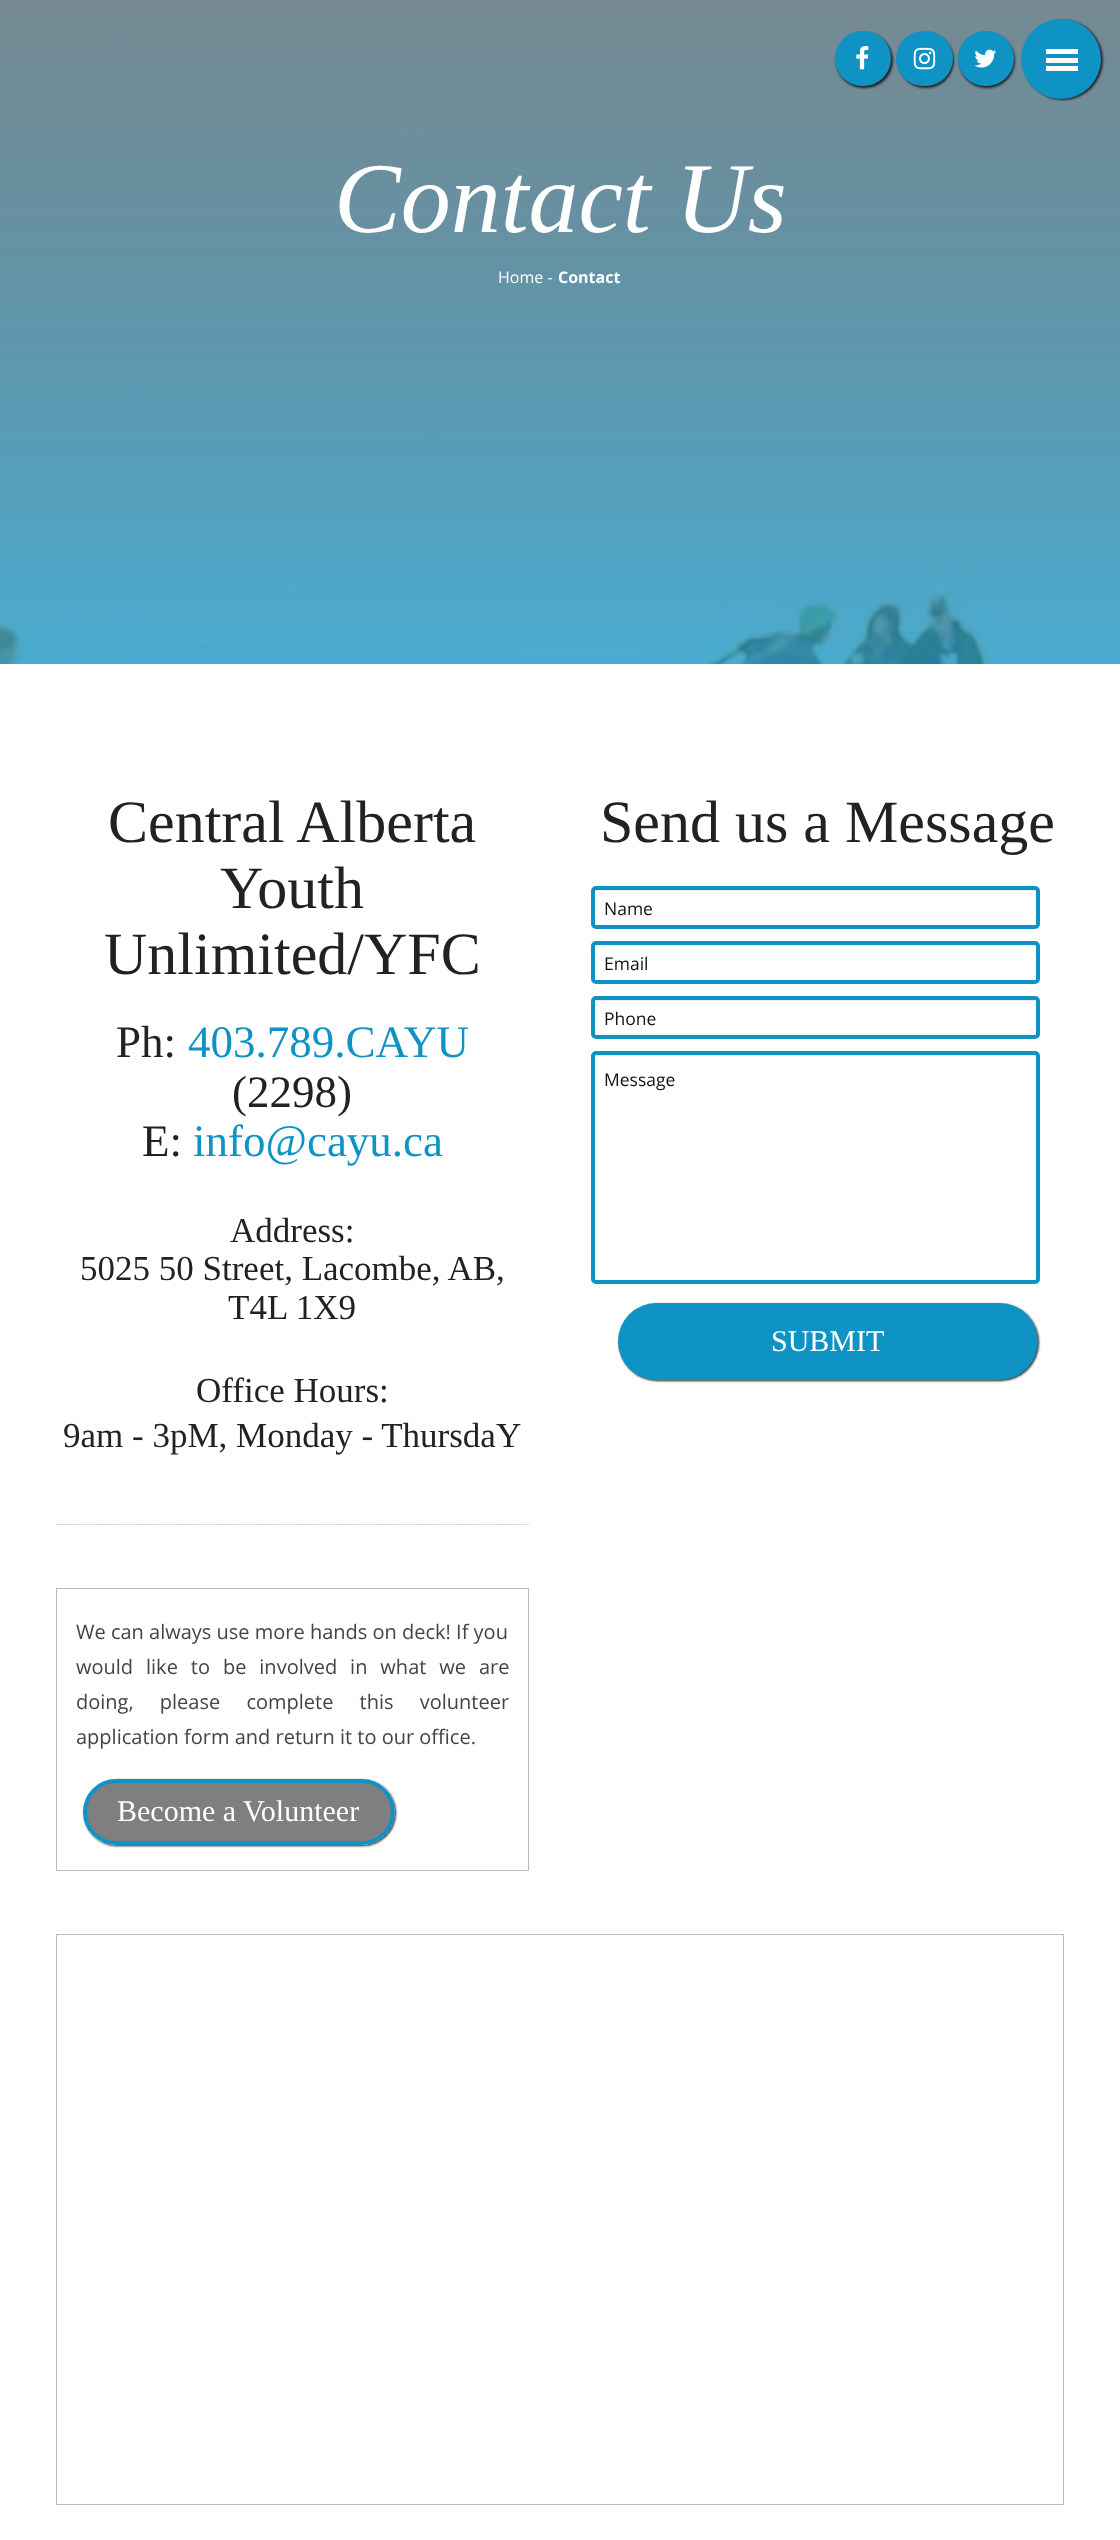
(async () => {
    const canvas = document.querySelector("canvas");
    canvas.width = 1120;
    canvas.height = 2540;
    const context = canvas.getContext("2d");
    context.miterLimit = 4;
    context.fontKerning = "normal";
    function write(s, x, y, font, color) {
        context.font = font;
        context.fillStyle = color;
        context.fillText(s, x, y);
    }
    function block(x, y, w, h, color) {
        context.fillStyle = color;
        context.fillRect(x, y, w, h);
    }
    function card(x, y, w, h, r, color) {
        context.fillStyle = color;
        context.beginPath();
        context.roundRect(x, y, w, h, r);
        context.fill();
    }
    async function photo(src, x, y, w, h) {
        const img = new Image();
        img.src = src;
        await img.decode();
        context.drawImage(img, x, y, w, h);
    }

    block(0, 0, 1120, 2540, "rgb(255, 255, 255)");
    await photo("media/1.png", 0, 0, 1120, 664);
    context.fillStyle = "rgb(34, 34, 34)";
    context.filter = "blur(1px)";
    context.beginPath();
    context.roundRect(836, 33, 57, 55, 27.5);
    context.fill();
    context.filter = "none";
    card(835, 31, 56, 55, 27.5, "rgb(15, 147, 196)");
    await photo("media/2.png", 856, 46, 13, 24);
    context.fillStyle = "rgb(34, 34, 34)";
    context.filter = "blur(1px)";
    context.beginPath();
    context.roundRect(898, 33, 56, 55, 27.5);
    context.fill();
    context.filter = "none";
    card(896, 31, 57, 55, 27.5, "rgb(15, 147, 196)");
    await photo("media/3.png", 913, 47, 23, 23);
    context.fillStyle = "rgb(34, 34, 34)";
    context.filter = "blur(1px)";
    context.beginPath();
    context.roundRect(959, 33, 56, 55, 27.5);
    context.fill();
    context.filter = "none";
    card(958, 31, 56, 55, 27.5, "rgb(15, 147, 196)");
    await photo("media/4.png", 974, 49, 23, 19);
    context.fillStyle = "rgb(34, 34, 34)";
    context.filter = "blur(1px)";
    context.beginPath();
    context.roundRect(1023, 20, 80, 80, 40);
    context.fill();
    context.filter = "none";
    context.fillStyle = "rgb(15, 147, 196)";
    context.beginPath();
    context.arc(1061, 59, 40, 0, Math.PI * 2);
    context.fill();
    block(1046, 49, 32, 5, "rgb(255, 255, 255)");
    block(1046, 58, 32, 5, "rgb(255, 255, 255)");
    block(1046, 66, 32, 5, "rgb(255, 255, 255)");
    write("Contact Us", 334, 232, "italic 100px Liberation Serif", "rgb(255, 255, 255)");
    write("Home -", 498, 283, "16px Open Sans", "rgb(255, 255, 255)");
    write("Contact", 558, 283, "bold 16px Open Sans", "rgb(255, 255, 255)");
    write("Central Alberta", 108, 842, "60px Liberation Serif", "rgb(34, 34, 34)");
    write("Youth", 220, 908, "60px Liberation Serif", "rgb(34, 34, 34)");
    write("Unlimited/YFC", 104, 974, "60px Liberation Serif", "rgb(34, 34, 34)");
    write("Ph:", 116, 1057, "45px Liberation Serif", "rgb(34, 34, 34)");
    write("403.789.CAYU", 188, 1057, "45px Liberation Serif", "rgb(15, 147, 196)");
    write("(2298)", 232, 1107, "45px Liberation Serif", "rgb(34, 34, 34)");
    write("E:", 142, 1156, "45px Liberation Serif", "rgb(34, 34, 34)");
    write("info@cayu.ca", 193, 1156, "45px Liberation Serif", "rgb(15, 147, 196)");
    write("Address:", 230, 1242, "35px Liberation Serif", "rgb(34, 34, 34)");
    write("5025 50 Street, Lacombe, AB,", 80, 1280, "35px Liberation Serif", "rgb(34, 34, 34)");
    write("T4L 1X9", 228, 1319, "35px Liberation Serif", "rgb(34, 34, 34)");
    write("Office Hours:", 196, 1402, "35px Liberation Serif", "rgb(34, 34, 34)");
    write("9am - 3pM, Monday - ThursdaY", 63, 1447, "35px Liberation Serif", "rgb(34, 34, 34)");
    context.beginPath();
    context.moveTo(56, 1524.5);
    context.lineTo(529, 1524.5);
    context.strokeStyle = "rgb(187, 187, 187)";
    context.lineWidth = 1.2;
    context.setLineDash([1.25, 1.25]);
    context.stroke();
    context.lineWidth = 1;
    context.setLineDash([]);
    context.strokeRect(56.5, 1588.5, 472, 282);
    write("We can always use more hands on deck! If you", 76, 1639, "20px Open Sans", "rgb(68, 68, 68)");
    context.wordSpacing = "7.75px";
    write("would like to be involved in what we are", 76, 1674, "20px Open Sans", "rgb(68, 68, 68)");
    context.wordSpacing = "21px";
    write("doing, please complete this volunteer", 76, 1709, "20px Open Sans", "rgb(68, 68, 68)");
    context.wordSpacing = "0px";
    write("application form and return it to our office.", 76, 1744, "20px Open Sans", "rgb(68, 68, 68)");
    context.save();
    context.beginPath();
    context.moveTo(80, 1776);
    context.lineTo(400, 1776);
    context.lineTo(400, 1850);
    context.lineTo(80, 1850);
    context.closePath();
    context.moveTo(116, 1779);
    context.lineTo(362, 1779);
    context.bezierCurveTo(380, 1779, 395, 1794, 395, 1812);
    context.bezierCurveTo(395, 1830, 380, 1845, 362, 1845);
    context.lineTo(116, 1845);
    context.bezierCurveTo(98, 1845, 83, 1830, 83, 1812);
    context.bezierCurveTo(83, 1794, 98, 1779, 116, 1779);
    context.closePath();
    context.clip("evenodd");
    context.fillStyle = "rgb(34, 34, 34)";
    context.filter = "blur(1px)";
    context.beginPath();
    context.roundRect(84, 1780, 312, 66, 33);
    context.fill();
    context.filter = "none";
    context.restore();
    context.fillStyle = "rgba(0, 0, 0, 0.5)";
    context.beginPath();
    context.roundRect(85, 1781, 308, 62, 31);
    context.fill();
    context.strokeStyle = "rgb(15, 147, 196)";
    context.lineWidth = 4;
    context.stroke();
    write("Become a Volunteer", 117, 1821, "30px Liberation Serif", "rgb(255, 255, 255)");
    write("Send us a Message", 600, 842, "60px Liberation Serif", "rgb(34, 34, 34)");
    context.fillStyle = "rgb(236, 236, 236)";
    context.beginPath();
    context.moveTo(596, 891);
    context.lineTo(1035, 891);
    context.lineTo(1036, 892);
    context.lineTo(1035, 890);
    context.lineTo(816, 890);
    context.lineTo(596, 890);
    context.lineTo(595, 891);
    context.lineTo(595, 892);
    context.closePath();
    context.fill();
    context.beginPath();
    context.roundRect(593, 888, 445, 39, 3);
    context.stroke();
    write("Name", 604, 915, "17.5px Open Sans", "rgb(17, 17, 17)");
    context.fillStyle = "rgb(236, 236, 236)";
    context.beginPath();
    context.moveTo(596, 946);
    context.lineTo(1035, 946);
    context.bezierCurveTo(1036, 946, 1036, 947, 1036, 948);
    context.lineTo(1036, 945);
    context.lineTo(1035, 945);
    context.lineTo(596, 945);
    context.bezierCurveTo(595, 945, 595, 947, 595, 948);
    context.closePath();
    context.fill();
    context.beginPath();
    context.roundRect(593, 943, 445, 39, 3);
    context.stroke();
    write("Email", 604, 970, "17.5px Open Sans", "rgb(17, 17, 17)");
    context.fillStyle = "rgb(236, 236, 236)";
    context.beginPath();
    context.moveTo(596, 1001);
    context.lineTo(1035, 1001);
    context.lineTo(1036, 1002);
    context.lineTo(1035, 1000);
    context.lineTo(816, 1000);
    context.lineTo(596, 1000);
    context.lineTo(595, 1001);
    context.lineTo(595, 1002);
    context.closePath();
    context.fill();
    context.beginPath();
    context.roundRect(593, 998, 445, 39, 3);
    context.stroke();
    write("Phone", 604, 1025, "17.5px Open Sans", "rgb(17, 17, 17)");
    context.fillStyle = "rgb(236, 236, 236)";
    context.beginPath();
    context.moveTo(596, 1056);
    context.lineTo(1035, 1056);
    context.bezierCurveTo(1036, 1056, 1036, 1057, 1036, 1058);
    context.lineTo(1036, 1055);
    context.lineTo(1035, 1055);
    context.lineTo(596, 1055);
    context.bezierCurveTo(595, 1055, 595, 1057, 595, 1058);
    context.closePath();
    context.fill();
    context.beginPath();
    context.roundRect(593, 1053, 445, 229, 3);
    context.stroke();
    write("Message", 604, 1086, "17.5px Open Sans", "rgb(17, 17, 17)");
    context.fillStyle = "rgb(34, 34, 34)";
    context.filter = "blur(1px)";
    context.beginPath();
    context.roundRect(619, 1304, 420, 77, 38.5);
    context.fill();
    context.filter = "none";
    card(618, 1303, 420, 77, 38.5, "rgb(15, 147, 196)");
    write("SUBMIT", 771, 1351, "30px Liberation Serif", "rgb(255, 255, 255)");
    context.strokeStyle = "rgb(187, 187, 187)";
    context.lineWidth = 1;
    context.strokeRect(56.5, 1934.5, 1007, 570);
})();
